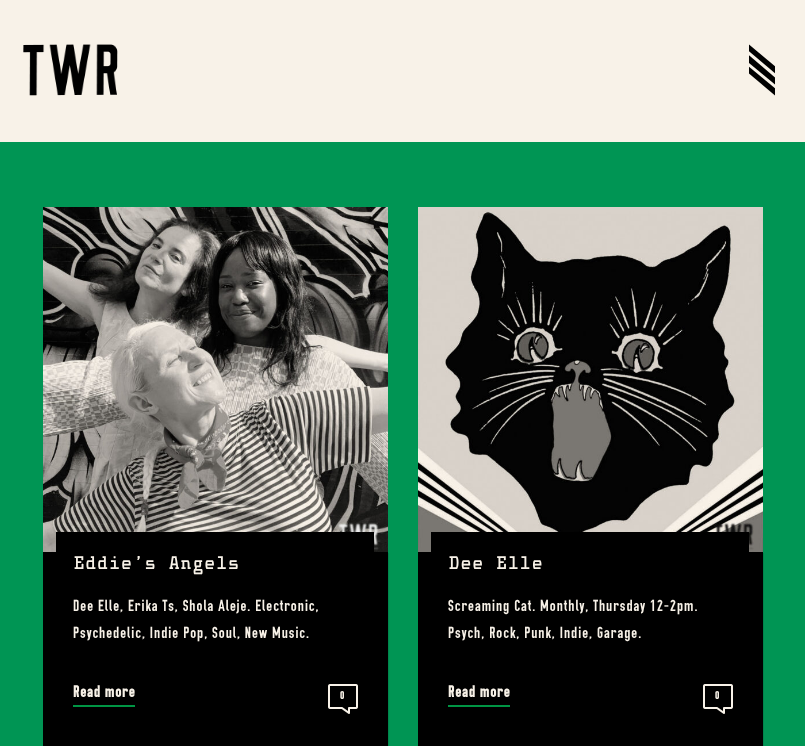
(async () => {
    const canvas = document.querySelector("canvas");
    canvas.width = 805;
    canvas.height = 746;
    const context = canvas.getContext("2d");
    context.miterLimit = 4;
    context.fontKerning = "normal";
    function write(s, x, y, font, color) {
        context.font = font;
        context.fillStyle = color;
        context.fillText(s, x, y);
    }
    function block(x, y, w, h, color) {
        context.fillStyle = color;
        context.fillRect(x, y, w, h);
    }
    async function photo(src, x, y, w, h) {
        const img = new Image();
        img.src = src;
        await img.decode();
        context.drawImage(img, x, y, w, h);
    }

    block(0, 0, 805, 746, "rgb(0, 149, 84)");
    block(0, 0, 805, 142, "rgb(248, 242, 232)");
    context.save();
    context.beginPath();
    context.rect(749, 40, 26, 65);
    context.clip();
    context.fillStyle = "rgb(0, 0, 0)";
    context.beginPath();
    context.moveTo(741, 38);
    context.lineTo(799, 86);
    context.lineTo(795, 90);
    context.lineTo(738, 42);
    context.closePath();
    context.fill();
    context.beginPath();
    context.moveTo(736, 44);
    context.lineTo(793, 93);
    context.lineTo(790, 97);
    context.lineTo(732, 49);
    context.closePath();
    context.fill();
    context.beginPath();
    context.moveTo(730, 51);
    context.lineTo(788, 99);
    context.lineTo(784, 103);
    context.lineTo(727, 55);
    context.closePath();
    context.fill();
    context.restore();
    await photo("media/1.png", 23, 44, 95, 52);
    context.fillStyle = "rgba(0, 0, 0, 0.1)";
    context.filter = "blur(0.5px)";
    context.beginPath();
    context.rect(44, 553, 345, 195);
    context.fill();
    context.filter = "none";
    await photo("media/2.png", 43, 207, 345, 345);
    block(43, 552, 345, 194, "rgb(0, 0, 0)");
    block(56, 532, 318, 20, "rgb(0, 0, 0)");
    write("Eddie’s Angels", 73, 569, "18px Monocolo", "rgb(248, 242, 232)");
    context.letterSpacing = "1px";
    write("Dee Elle, Erika Ts, Shola Aleje. Electronic,", 73, 611, "500 16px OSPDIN", "rgb(248, 242, 232)");
    write("Psychedelic, Indie Pop, Soul, New Music.", 73, 638, "500 16px OSPDIN", "rgb(248, 242, 232)");
    block(73, 705, 62, 2, "rgb(0, 149, 68)");
    write("Read more", 73, 697, "bold 16px OSPDIN", "rgb(248, 242, 232)");
    await photo("media/3.png", 328, 684, 30, 30);
    write("0", 340, 699, "bold 11px OSPDIN", "rgb(248, 242, 232)");
    context.fillStyle = "rgba(0, 0, 0, 0.1)";
    context.filter = "blur(0.5px)";
    context.beginPath();
    context.rect(419, 553, 345, 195);
    context.fill();
    context.filter = "none";
    await photo("media/4.png", 418, 207, 345, 345);
    block(418, 552, 345, 194, "rgb(0, 0, 0)");
    block(431, 532, 318, 20, "rgb(0, 0, 0)");
    context.letterSpacing = "0px";
    write("Dee Elle", 448, 569, "18px Monocolo", "rgb(248, 242, 232)");
    context.letterSpacing = "1px";
    write("Screaming Cat. Monthly, Thursday 12-2pm.", 448, 611, "500 16px OSPDIN", "rgb(248, 242, 232)");
    write("Psych, Rock, Punk, Indie, Garage.", 448, 638, "500 16px OSPDIN", "rgb(248, 242, 232)");
    block(448, 705, 62, 2, "rgb(0, 149, 68)");
    write("Read more", 448, 697, "bold 16px OSPDIN", "rgb(248, 242, 232)");
    await photo("media/3.png", 703, 684, 30, 30);
    write("0", 715, 699, "bold 11px OSPDIN", "rgb(248, 242, 232)");
})();
